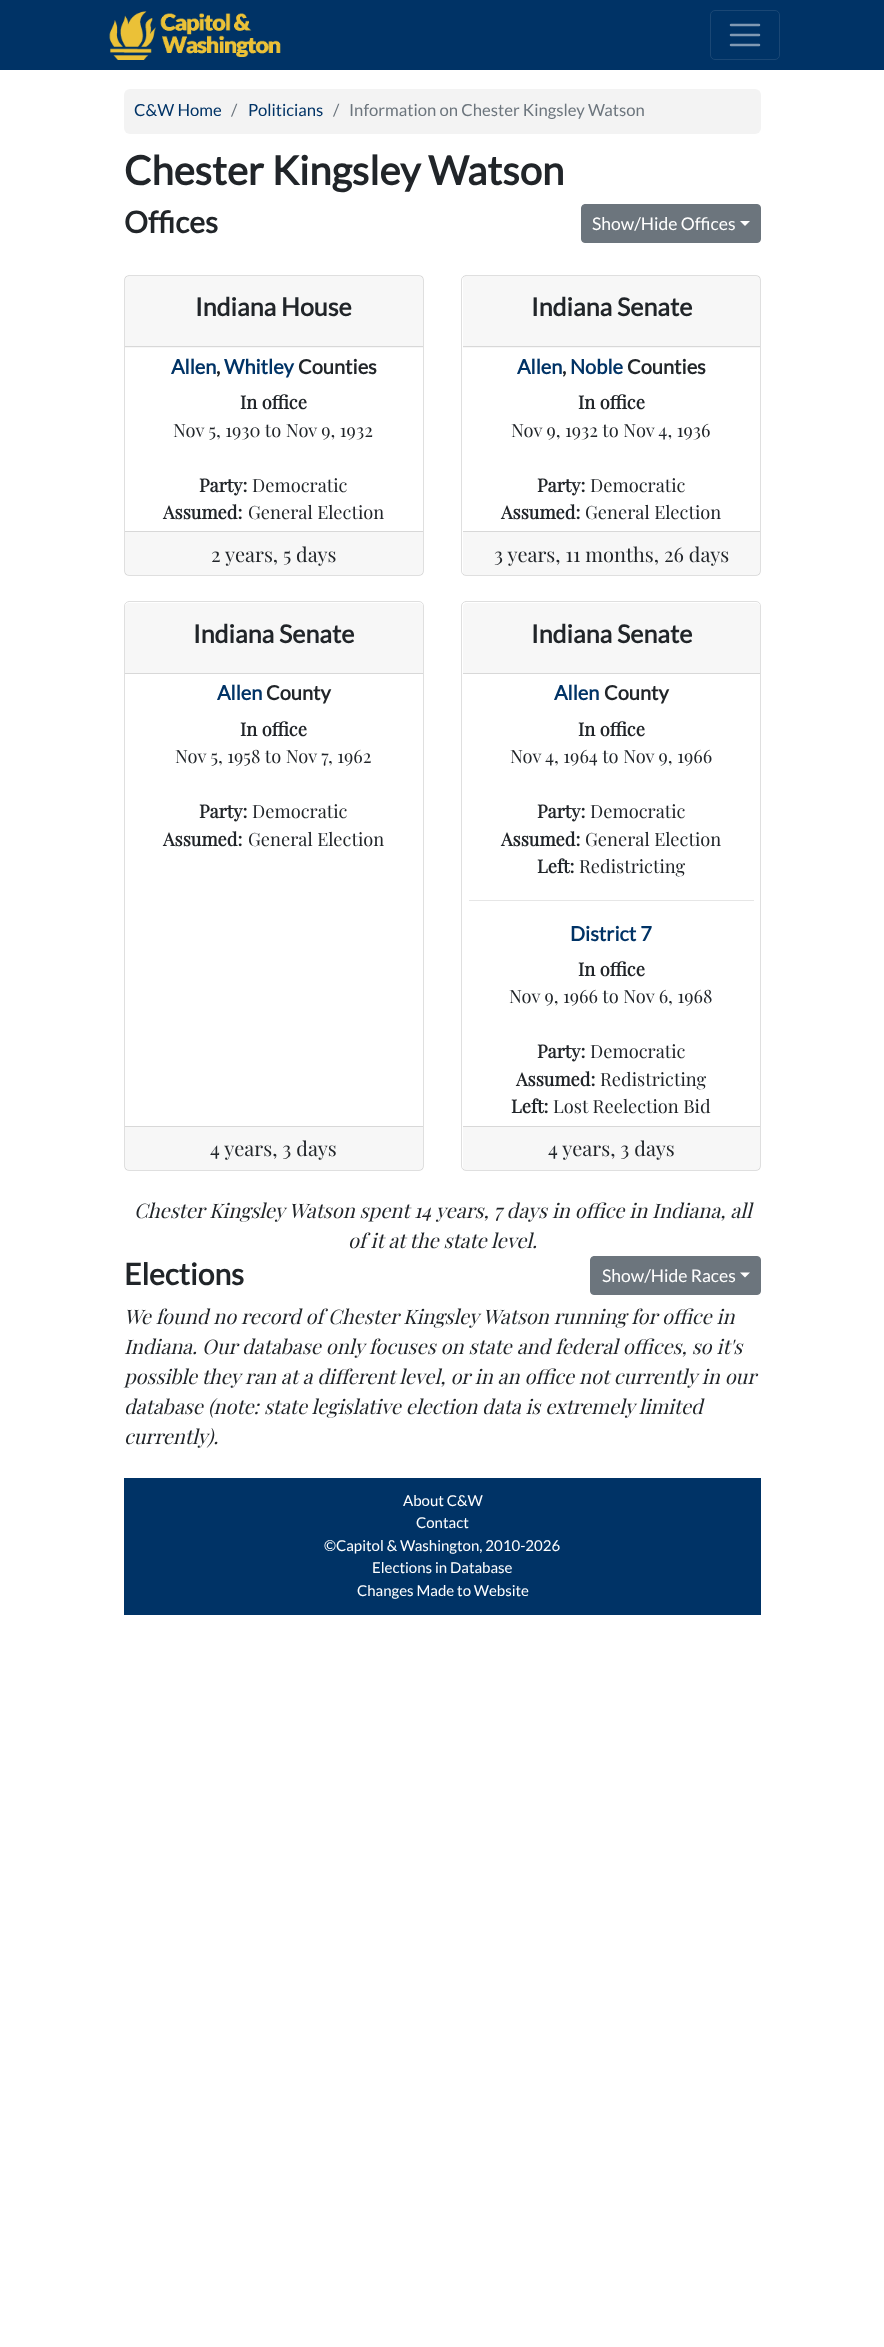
(async () => {
    const canvas = document.querySelector("canvas");
    canvas.width = 884;
    canvas.height = 2347;
    const context = canvas.getContext("2d");
    context.miterLimit = 4;
    context.fontKerning = "normal";
    function write(s, x, y, font, color) {
        context.font = font;
        context.fillStyle = color;
        context.fillText(s, x, y);
    }
    function block(x, y, w, h, color) {
        context.fillStyle = color;
        context.fillRect(x, y, w, h);
    }
    function card(x, y, w, h, r, color) {
        context.fillStyle = color;
        context.beginPath();
        context.roundRect(x, y, w, h, r);
        context.fill();
    }
    async function photo(src, x, y, w, h) {
        const img = new Image();
        img.src = src;
        await img.decode();
        context.drawImage(img, x, y, w, h);
    }

    block(0, 0, 884, 2347, "rgb(255, 255, 255)");
    block(0, 0, 884, 70, "rgb(0, 51, 102)");
    await photo("media/1.png", 109, 11, 172, 49);
    context.beginPath();
    context.roundRect(710.5, 10.5, 69, 49, 4.5);
    context.strokeStyle = "rgb(26, 71, 117)";
    context.stroke();
    context.beginPath();
    context.moveTo(731, 25);
    context.lineTo(759, 25);
    context.moveTo(731, 35);
    context.lineTo(759, 35);
    context.moveTo(731, 45);
    context.lineTo(759, 45);
    context.strokeStyle = "rgb(128, 153, 179)";
    context.lineWidth = 2.5;
    context.lineCap = "round";
    context.stroke();
    card(124, 89, 637, 45, 6, "rgb(243, 243, 243)");
    write("C&W Home", 134, 116, "16.7px Lato", "rgb(0, 51, 102)");
    write("/", 231, 116, "16.7px Lato", "rgb(108, 117, 125)");
    write("Politicians", 248, 116, "16.7px Lato", "rgb(0, 51, 102)");
    write("/", 333, 116, "16.7px Lato", "rgb(108, 117, 125)");
    write("Information on Chester Kingsley Watson", 349, 116, "16.7px Lato", "rgb(108, 117, 125)");
    write("Chester Kingsley Watson", 124, 185, "bold 40px Lato", "rgb(33, 37, 41)");
    write("Offices", 124, 233, "bold 30px Lato", "rgb(33, 37, 41)");
    context.fillStyle = "rgb(108, 117, 125)";
    context.beginPath();
    context.roundRect(581.5, 204.5, 179, 38, 3.5);
    context.fill();
    context.strokeStyle = "rgb(108, 117, 125)";
    context.lineWidth = 1;
    context.stroke();
    write("Show/Hide Offices", 592, 230, "17.5px Lato", "rgb(255, 255, 255)");
    context.beginPath();
    context.moveTo(740, 221);
    context.lineTo(750, 221);
    context.lineTo(745, 226);
    context.closePath();
    context.fill();
    context.beginPath();
    context.roundRect(124.5, 275.5, 299, 300, 4.5);
    context.strokeStyle = "rgb(223, 223, 223)";
    context.stroke();
    block(125, 276, 298, 72, "rgba(0, 0, 0, 0.03)");
    block(125, 346, 298, 1, "rgb(216, 216, 216)");
    write("Indiana House", 195, 316, "bold 25px Lato", "rgb(33, 37, 41)");
    write("Allen", 171, 374, "bold 20px Lato", "rgb(0, 51, 102)");
    write(",", 216, 374, "bold 20px Lato", "rgb(33, 37, 41)");
    write("Whitley", 224, 374, "bold 20px Lato", "rgb(0, 51, 102)");
    write("Counties", 298, 374, "bold 20px Lato", "rgb(33, 37, 41)");
    write("In office", 240, 409, "bold 18.25px Playfair Display", "rgb(33, 37, 41)");
    write("Nov 5, 1930 to Nov 9, 1932", 173, 437, "18.25px Playfair Display", "rgb(33, 37, 41)");
    write("Party:", 199, 492, "bold 18.25px Playfair Display", "rgb(33, 37, 41)");
    write("Democratic", 252, 492, "18.25px Playfair Display", "rgb(33, 37, 41)");
    write("Assumed:", 163, 519, "bold 18.25px Playfair Display", "rgb(33, 37, 41)");
    write("General Election", 248, 519, "18.25px Playfair Display", "rgb(33, 37, 41)");
    block(125, 532, 298, 43, "rgba(0, 0, 0, 0.03)");
    block(125, 531, 298, 1, "rgb(216, 216, 216)");
    write("2 years, 5 days", 211, 562, "20px Playfair Display", "rgb(33, 37, 41)");
    context.beginPath();
    context.roundRect(461.5, 275.5, 299, 300, 4.5);
    context.stroke();
    block(463, 276, 297, 72, "rgba(0, 0, 0, 0.03)");
    block(463, 346, 297, 1, "rgb(216, 216, 216)");
    write("Indiana Senate", 531, 316, "bold 25px Lato", "rgb(33, 37, 41)");
    write("Allen", 517, 374, "bold 20px Lato", "rgb(0, 51, 102)");
    write(",", 562, 374, "bold 20px Lato", "rgb(33, 37, 41)");
    write("Noble", 570, 374, "bold 20px Lato", "rgb(0, 51, 102)");
    write("Counties", 627, 374, "bold 20px Lato", "rgb(33, 37, 41)");
    write("In office", 578, 409, "bold 18.25px Playfair Display", "rgb(33, 37, 41)");
    write("Nov 9, 1932 to Nov 4, 1936", 511, 437, "18.25px Playfair Display", "rgb(33, 37, 41)");
    write("Party:", 537, 492, "bold 18.25px Playfair Display", "rgb(33, 37, 41)");
    write("Democratic", 590, 492, "18.25px Playfair Display", "rgb(33, 37, 41)");
    write("Assumed:", 501, 519, "bold 18.25px Playfair Display", "rgb(33, 37, 41)");
    write("General Election", 585, 519, "18.25px Playfair Display", "rgb(33, 37, 41)");
    block(463, 532, 297, 43, "rgba(0, 0, 0, 0.03)");
    block(463, 531, 297, 1, "rgb(216, 216, 216)");
    write("3 years, 11 months, 26 days", 494, 562, "20px Playfair Display", "rgb(33, 37, 41)");
    context.beginPath();
    context.roundRect(124.5, 601.5, 299, 569, 4.5);
    context.stroke();
    context.fillStyle = "rgb(247, 247, 247)";
    context.beginPath();
    context.roundRect(125, 603, 298, 71, [4, 4, 0, 0]);
    context.fill();
    block(125, 673, 298, 1, "rgb(216, 216, 216)");
    write("Indiana Senate", 193, 643, "bold 25px Lato", "rgb(33, 37, 41)");
    write("Allen", 217, 700, "bold 20px Lato", "rgb(0, 51, 102)");
    write("County", 266, 700, "bold 20px Lato", "rgb(33, 37, 41)");
    write("In office", 240, 736, "bold 18.25px Playfair Display", "rgb(33, 37, 41)");
    write("Nov 5, 1958 to Nov 7, 1962", 175, 763, "18.25px Playfair Display", "rgb(33, 37, 41)");
    write("Party:", 199, 818, "bold 18.25px Playfair Display", "rgb(33, 37, 41)");
    write("Democratic", 252, 818, "18.25px Playfair Display", "rgb(33, 37, 41)");
    write("Assumed:", 163, 846, "bold 18.25px Playfair Display", "rgb(33, 37, 41)");
    write("General Election", 248, 846, "18.25px Playfair Display", "rgb(33, 37, 41)");
    block(125, 1127, 298, 43, "rgba(0, 0, 0, 0.03)");
    block(125, 1126, 298, 1, "rgb(216, 216, 216)");
    write("4 years, 3 days", 210, 1156, "20px Playfair Display", "rgb(33, 37, 41)");
    context.beginPath();
    context.roundRect(461.5, 601.5, 299, 569, 4.5);
    context.stroke();
    context.fillStyle = "rgb(247, 247, 247)";
    context.beginPath();
    context.roundRect(463, 603, 297, 71, [4, 4, 0, 0]);
    context.fill();
    block(463, 673, 297, 1, "rgb(216, 216, 216)");
    write("Indiana Senate", 531, 643, "bold 25px Lato", "rgb(33, 37, 41)");
    write("Allen", 554, 700, "bold 20px Lato", "rgb(0, 51, 102)");
    write("County", 604, 700, "bold 20px Lato", "rgb(33, 37, 41)");
    write("In office", 578, 736, "bold 18.25px Playfair Display", "rgb(33, 37, 41)");
    write("Nov 4, 1964 to Nov 9, 1966", 510, 763, "18.25px Playfair Display", "rgb(33, 37, 41)");
    write("Party:", 537, 818, "bold 18.25px Playfair Display", "rgb(33, 37, 41)");
    write("Democratic", 590, 818, "18.25px Playfair Display", "rgb(33, 37, 41)");
    write("Assumed:", 501, 846, "bold 18.25px Playfair Display", "rgb(33, 37, 41)");
    write("General Election", 585, 846, "18.25px Playfair Display", "rgb(33, 37, 41)");
    write("Left:", 537, 873, "bold 18.25px Playfair Display", "rgb(33, 37, 41)");
    write("Redistricting", 579, 873, "18.25px Playfair Display", "rgb(33, 37, 41)");
    block(469, 900, 285, 1, "rgb(230, 230, 230)");
    write("District 7", 570, 941, "bold 20px Lato", "rgb(0, 51, 102)");
    write("In office", 578, 976, "bold 18.25px Playfair Display", "rgb(33, 37, 41)");
    write("Nov 9, 1966 to Nov 6, 1968", 509, 1003, "18.25px Playfair Display", "rgb(33, 37, 41)");
    write("Party:", 537, 1058, "bold 18.25px Playfair Display", "rgb(33, 37, 41)");
    write("Democratic", 590, 1058, "18.25px Playfair Display", "rgb(33, 37, 41)");
    write("Assumed:", 516, 1086, "bold 18.25px Playfair Display", "rgb(33, 37, 41)");
    write("Redistricting", 600, 1086, "18.25px Playfair Display", "rgb(33, 37, 41)");
    write("Left:", 511, 1113, "bold 18.25px Playfair Display", "rgb(33, 37, 41)");
    write("Lost Reelection Bid", 553, 1113, "18.25px Playfair Display", "rgb(33, 37, 41)");
    block(463, 1127, 297, 43, "rgba(0, 0, 0, 0.03)");
    block(463, 1126, 297, 1, "rgb(216, 216, 216)");
    write("4 years, 3 days", 548, 1156, "20px Playfair Display", "rgb(33, 37, 41)");
    write("Chester Kingsley Watson spent 14 years, 7 days in office in Indiana, all", 134, 1218, "italic 20px Playfair Display", "rgb(33, 37, 41)");
    write("of it at the state level.", 348, 1248, "italic 20px Playfair Display", "rgb(33, 37, 41)");
    write("Elections", 124, 1285, "bold 30px Lato", "rgb(33, 37, 41)");
    context.fillStyle = "rgb(108, 117, 125)";
    context.beginPath();
    context.roundRect(590.5, 1256.5, 170, 38, 3.5);
    context.fill();
    context.strokeStyle = "rgb(108, 117, 125)";
    context.stroke();
    write("Show/Hide Races", 602, 1282, "17.5px Lato", "rgb(255, 255, 255)");
    context.beginPath();
    context.moveTo(740, 1272.5);
    context.lineTo(750, 1272.5);
    context.lineTo(745, 1277.5);
    context.closePath();
    context.fill();
    write("We found no record of Chester Kingsley Watson running for office in", 124, 1324, "italic 20px Playfair Display", "rgb(33, 37, 41)");
    write("Indiana. Our database only focuses on state and federal offices, so it's", 124, 1354, "italic 20px Playfair Display", "rgb(33, 37, 41)");
    write("possible they ran at a different level, or in an office not currently in our", 124, 1384, "italic 20px Playfair Display", "rgb(33, 37, 41)");
    write("database (note: state legislative election data is extremely limited", 124, 1414, "italic 20px Playfair Display", "rgb(33, 37, 41)");
    write("currently).", 124, 1444, "italic 20px Playfair Display", "rgb(33, 37, 41)");
    block(124, 1478, 637, 137, "rgb(0, 51, 102)");
    write("About C&W", 403, 1506, "15px Lato", "rgb(255, 255, 255)");
    write("Contact", 416, 1528, "15px Lato", "rgb(255, 255, 255)");
    write("©Capitol & Washington, 2010-2026", 324, 1551, "15px Lato", "rgb(255, 255, 255)");
    write("Elections in Database", 372, 1573, "15px Lato", "rgb(255, 255, 255)");
    write("Changes Made to Website", 357, 1596, "15px Lato", "rgb(255, 255, 255)");
})();
